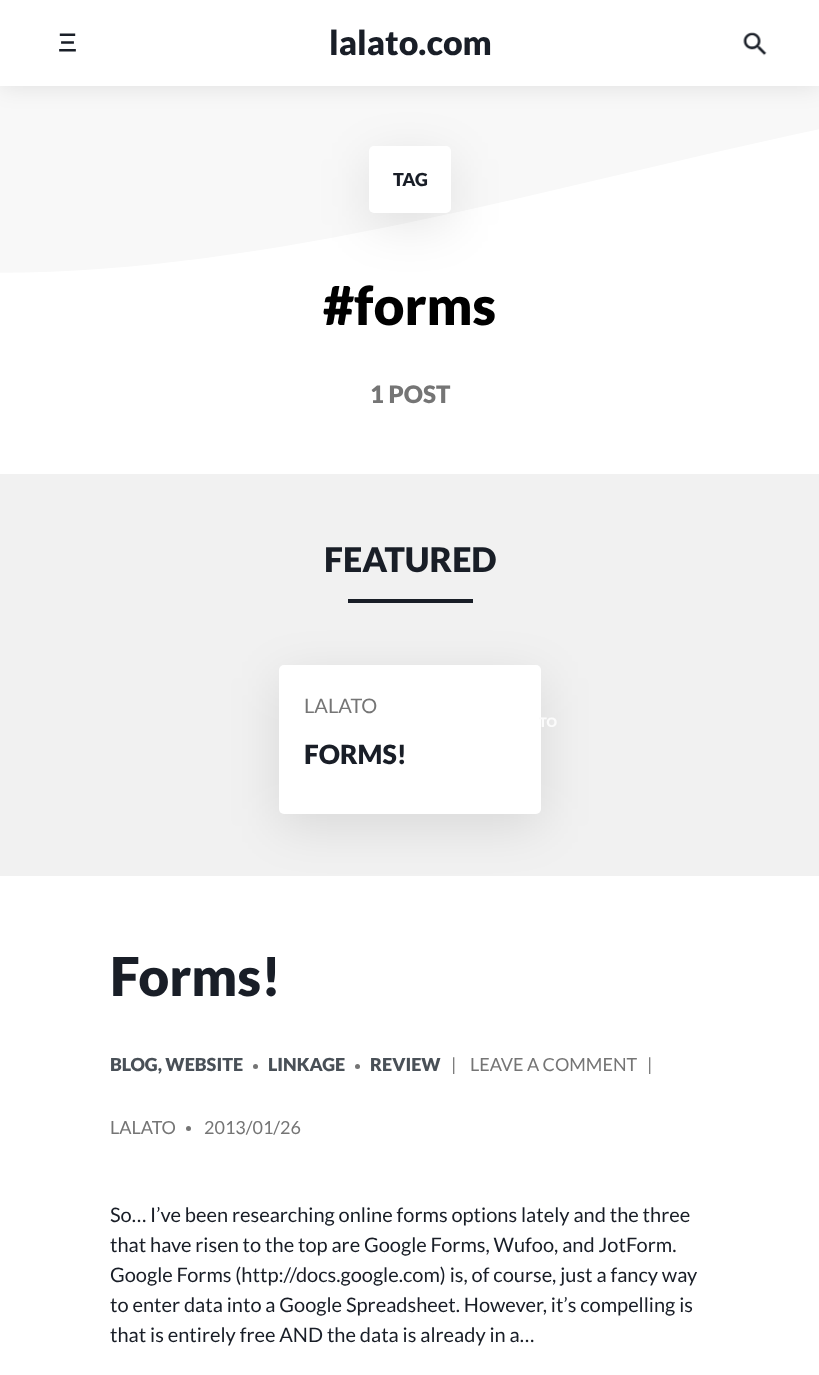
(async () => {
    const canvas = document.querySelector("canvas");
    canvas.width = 819;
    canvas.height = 1375;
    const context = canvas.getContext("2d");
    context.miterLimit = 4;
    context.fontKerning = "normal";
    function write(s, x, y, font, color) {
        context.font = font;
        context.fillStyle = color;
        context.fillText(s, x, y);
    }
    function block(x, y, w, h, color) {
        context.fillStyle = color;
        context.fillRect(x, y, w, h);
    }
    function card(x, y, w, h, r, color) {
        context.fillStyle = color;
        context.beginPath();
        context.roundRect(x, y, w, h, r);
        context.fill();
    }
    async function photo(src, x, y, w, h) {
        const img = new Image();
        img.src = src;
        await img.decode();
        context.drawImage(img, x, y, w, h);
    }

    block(0, 0, 819, 1375, "rgb(255, 255, 255)");
    context.fillStyle = "rgb(248, 248, 248)";
    context.beginPath();
    context.moveTo(-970, 17);
    context.lineTo(-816, 78);
    context.bezierCurveTo(-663, 139, -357, 262, -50, 272);
    context.bezierCurveTo(256, 283, 562, 180, 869, 119);
    context.bezierCurveTo(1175, 57, 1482, 38, 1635, 27);
    context.lineTo(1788, 17);
    context.lineTo(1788, -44);
    context.lineTo(-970, -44);
    context.closePath();
    context.fill();
    context.fillStyle = "rgba(0, 0, 0, 0.1)";
    context.filter = "blur(12.5px)";
    context.beginPath();
    context.rect(0, 0, 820, 86);
    context.fill();
    context.filter = "none";
    context.filter = "blur(25px)";
    context.beginPath();
    context.roundRect(369, 159, 82, 66, 5);
    context.fill();
    context.filter = "none";
    block(0, 0, 819, 86, "rgb(255, 255, 255)");
    await photo("media/1.png", 59, 33, 17, 19);
    write("lalato.com", 329, 55, "900 34px Lato", "rgb(25, 30, 39)");
    await photo("media/2.png", 743, 32, 24, 24);
    card(369, 146, 82, 67, 5, "rgb(255, 255, 255)");
    write("TAG", 393, 186, "900 18px Lato", "rgb(25, 30, 39)");
    write("#forms", 323, 325, "900 53.5px Lato", "rgb(0, 0, 0)");
    write("1 POST", 370, 403, "900 24px Lato", "rgb(117, 117, 117)");
    block(0, 474, 819, 402, "rgb(241, 241, 241)");
    write("FEATURED", 324, 572, "900 34px Lato", "rgb(25, 30, 39)");
    block(348, 599, 125, 4, "rgb(25, 30, 39)");
    context.fillStyle = "rgba(0, 0, 0, 0.1)";
    context.filter = "blur(25px)";
    context.beginPath();
    context.roundRect(279, 678, 262, 148, 5);
    context.fill();
    context.filter = "none";
    card(279, 665, 262, 149, 5, "rgb(255, 255, 255)");
    write("LALATO", 304, 713, "20px Lato", "rgb(117, 117, 117)");
    write("FORMS!", 304, 764, "900 26.5px Lato", "rgb(25, 30, 39)");
    write("TO", 539, 727, "900 13px Lato", "rgb(251, 251, 251)");
    write("Forms!", 110, 996, "900 53.5px Lato", "rgb(25, 30, 39)");
    write("BLOG, WEBSITE", 110, 1071, "900 18px Lato", "rgb(73, 80, 87)");
    context.fillStyle = "rgb(117, 117, 117)";
    context.beginPath();
    context.arc(255.5, 1066.5, 2.5, 0, Math.PI * 2);
    context.fill();
    write("LINKAGE", 268, 1071, "900 18px Lato", "rgb(73, 80, 87)");
    context.fillStyle = "rgb(117, 117, 117)";
    context.beginPath();
    context.arc(357.5, 1066.5, 2.5, 0, Math.PI * 2);
    context.fill();
    write("REVIEW", 370, 1071, "900 18px Lato", "rgb(73, 80, 87)");
    write("|", 451, 1071, "18px Lato", "rgb(117, 117, 117)");
    write("LEAVE A COMMENT", 470, 1071, "18px Lato", "rgb(117, 117, 117)");
    write("|", 647, 1071, "18px Lato", "rgb(117, 117, 117)");
    write("LALATO", 110, 1134, "18px Lato", "rgb(117, 117, 117)");
    context.beginPath();
    context.arc(188.5, 1128.5, 2.5, 0, Math.PI * 2);
    context.fill();
    write("2013/01/26", 204, 1134, "18px Lato", "rgb(117, 117, 117)");
    write("So… I’ve been researching online forms options lately and the three", 110, 1222, "20px Lato", "rgb(25, 30, 39)");
    write("that have risen to the top are Google Forms, Wufoo, and JotForm.", 110, 1252, "20px Lato", "rgb(25, 30, 39)");
    write("Google Forms (http://docs.google.com) is, of course, just a fancy way", 110, 1282, "20px Lato", "rgb(25, 30, 39)");
    write("to enter data into a Google Spreadsheet. However, it’s compelling is", 110, 1312, "20px Lato", "rgb(25, 30, 39)");
    write("that is entirely free AND the data is already in a…", 110, 1342, "20px Lato", "rgb(25, 30, 39)");
})();
